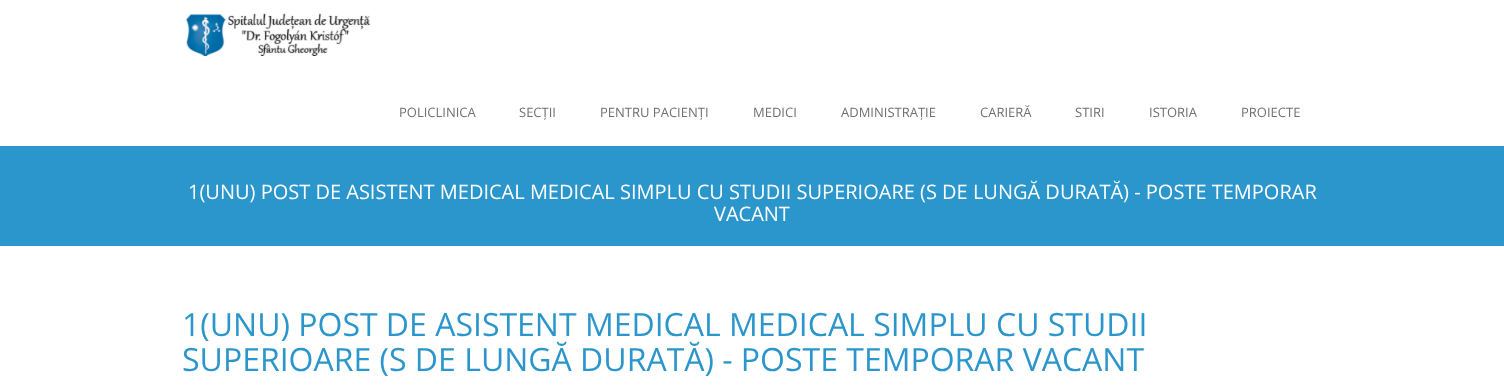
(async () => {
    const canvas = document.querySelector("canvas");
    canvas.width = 1504;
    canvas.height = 385;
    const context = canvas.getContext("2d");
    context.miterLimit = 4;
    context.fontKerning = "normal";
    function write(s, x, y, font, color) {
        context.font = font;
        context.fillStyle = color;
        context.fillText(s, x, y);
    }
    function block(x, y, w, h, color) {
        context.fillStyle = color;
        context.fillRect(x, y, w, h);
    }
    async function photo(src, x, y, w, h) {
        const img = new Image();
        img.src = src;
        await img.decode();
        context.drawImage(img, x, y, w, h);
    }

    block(0, 0, 1504, 385, "rgb(255, 255, 255)");
    await photo("media/1.png", 185, 13, 186, 43);
    write("POLICLINICA", 399, 117, "13px Open Sans", "rgb(112, 112, 112)");
    write("SECȚII", 519, 117, "13px Open Sans", "rgb(112, 112, 112)");
    write("PENTRU PACIENȚI", 600, 117, "13px Open Sans", "rgb(112, 112, 112)");
    write("MEDICI", 753, 117, "13px Open Sans", "rgb(112, 112, 112)");
    write("ADMINISTRAȚIE", 841, 117, "13px Open Sans", "rgb(112, 112, 112)");
    write("CARIERĂ", 980, 117, "13px Open Sans", "rgb(112, 112, 112)");
    write("STIRI", 1075, 117, "13px Open Sans", "rgb(112, 112, 112)");
    write("ISTORIA", 1149, 117, "13px Open Sans", "rgb(112, 112, 112)");
    write("PROIECTE", 1241, 117, "13px Open Sans", "rgb(112, 112, 112)");
    block(0, 146, 1504, 100, "rgb(43, 150, 204)");
    write("1(UNU) POST DE ASISTENT MEDICAL MEDICAL SIMPLU CU STUDII SUPERIOARE (S DE LUNGĂ DURATĂ) - POSTE TEMPORAR", 188, 199, "20px Open Sans", "rgb(255, 255, 255)");
    write("VACANT", 714, 221, "20px Open Sans", "rgb(255, 255, 255)");
    write("1(UNU) POST DE ASISTENT MEDICAL MEDICAL SIMPLU CU STUDII", 182, 336, "32px Open Sans", "rgb(43, 150, 204)");
    write("SUPERIOARE (S DE LUNGĂ DURATĂ) - POSTE TEMPORAR VACANT", 182, 371, "32px Open Sans", "rgb(43, 150, 204)");
})();
